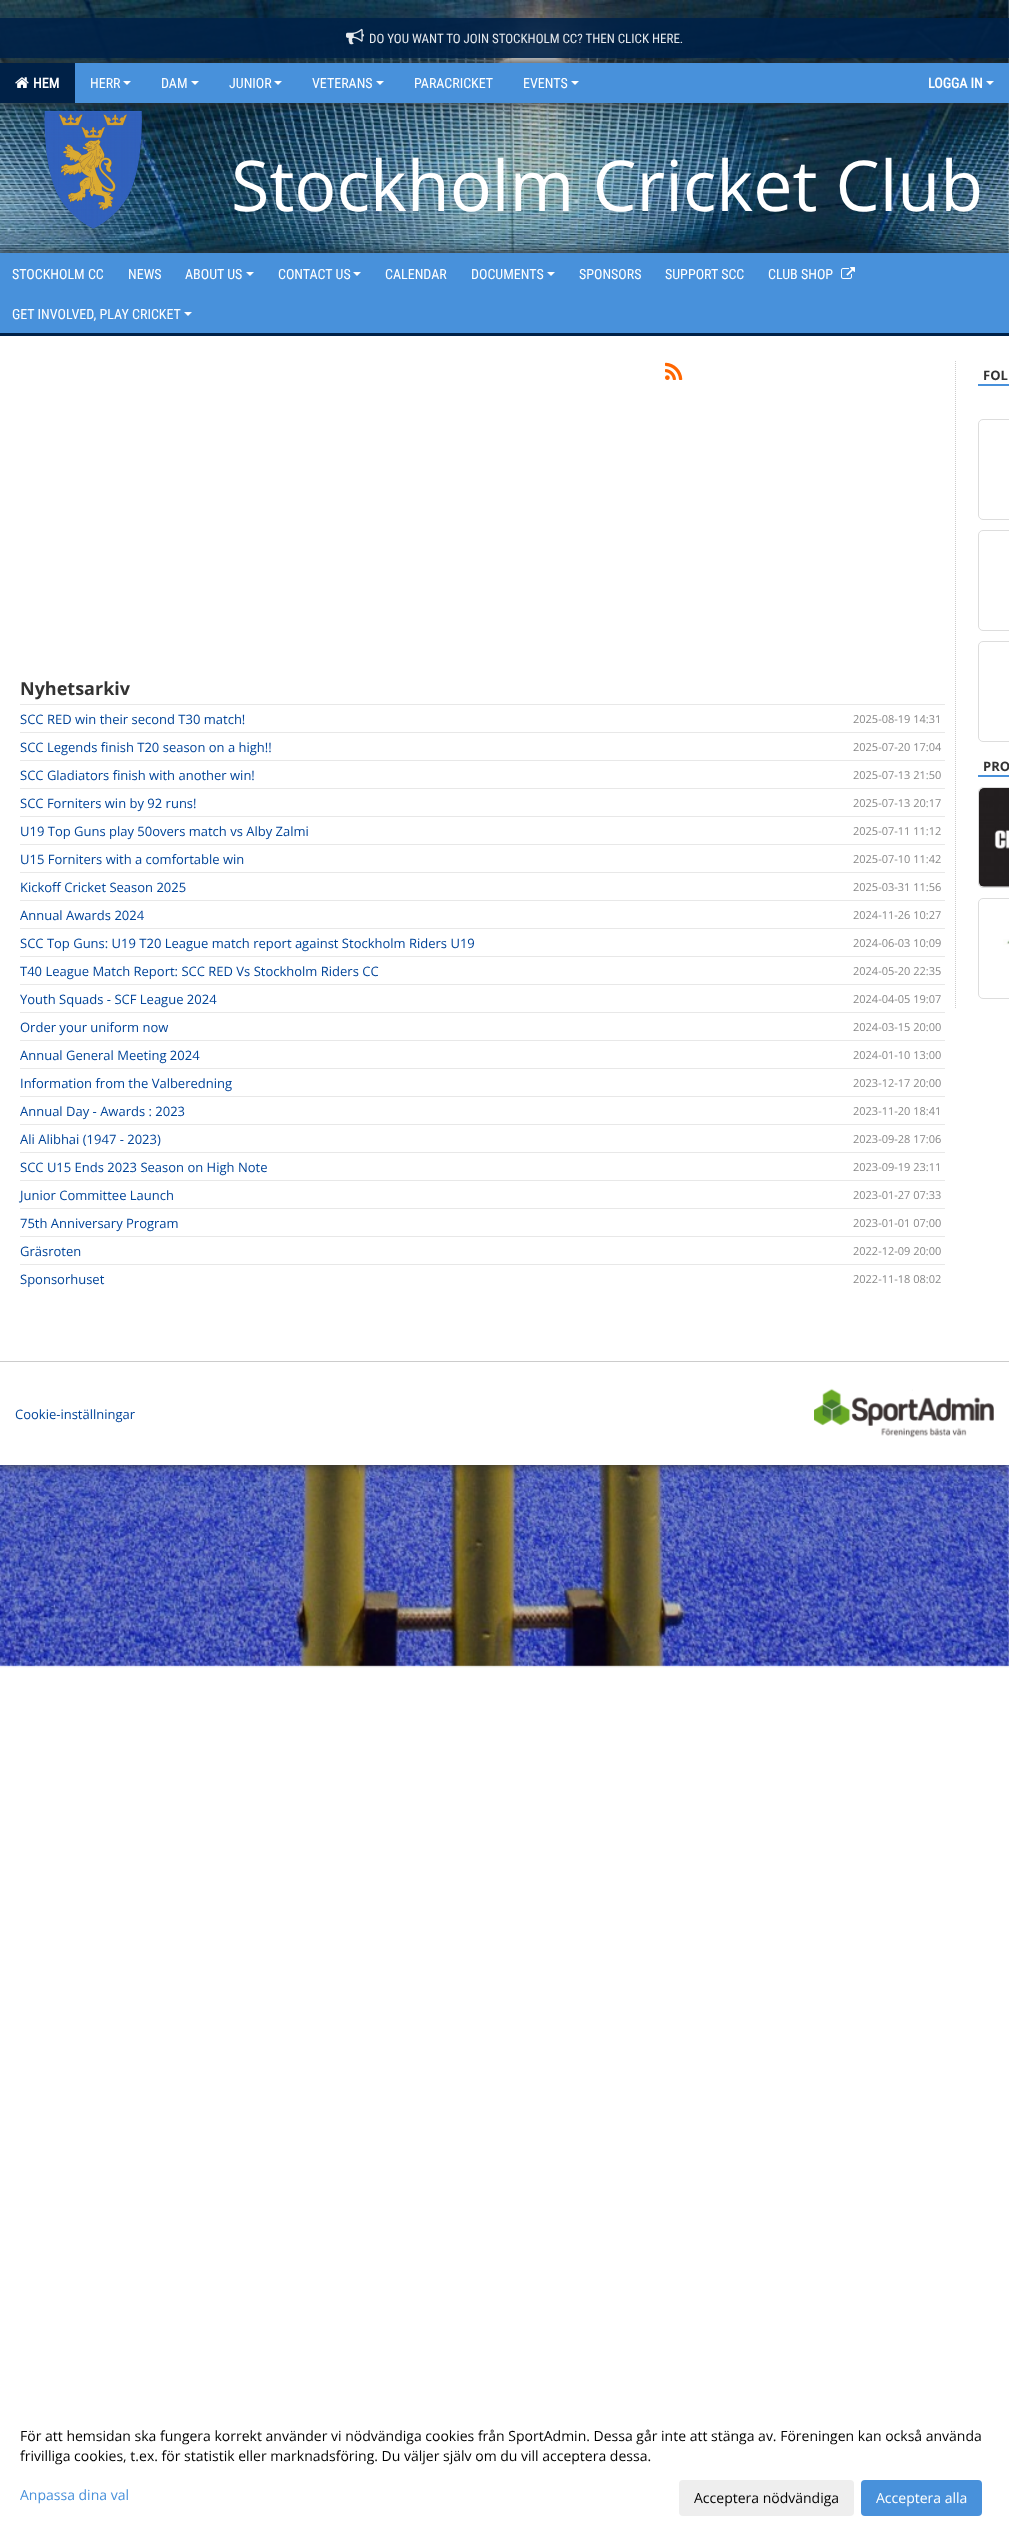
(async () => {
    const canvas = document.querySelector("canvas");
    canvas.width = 1009;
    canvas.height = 2536;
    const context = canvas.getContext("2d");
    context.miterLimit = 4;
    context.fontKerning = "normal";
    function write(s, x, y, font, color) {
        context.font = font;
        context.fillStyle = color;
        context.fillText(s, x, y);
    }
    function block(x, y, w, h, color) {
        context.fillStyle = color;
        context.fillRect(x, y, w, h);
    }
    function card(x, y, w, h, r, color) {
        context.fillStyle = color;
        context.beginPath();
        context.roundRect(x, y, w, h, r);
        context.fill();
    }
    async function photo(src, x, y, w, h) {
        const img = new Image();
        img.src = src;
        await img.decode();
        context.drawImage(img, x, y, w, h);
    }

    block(0, 0, 1009, 2536, "rgb(255, 255, 255)");
    await photo("media/1.png", 0, 0, 1009, 1668);
    context.fillStyle = "rgb(51, 51, 51)";
    context.filter = "blur(5px)";
    context.beginPath();
    context.rect(0, 63, 1009, 40);
    context.fill();
    context.filter = "none";
    block(0, 18, 1009, 40, "rgba(0, 33, 71, 0.9)");
    await photo("media/2.png", 346, 28, 18, 17);
    write("DO YOU WANT TO JOIN STOCKHOLM CC? THEN CLICK HERE.", 369, 43, "13px Roboto Condensed", "rgb(230, 233, 237)");
    block(75, 63, 934, 40, "rgb(72, 145, 219)");
    block(0, 63, 75, 40, "rgb(0, 33, 71)");
    await photo("media/3.png", 15, 77, 14, 11);
    write("HEM", 33, 88, "bold 14px Roboto Condensed", "rgb(255, 255, 255)");
    write("HERR", 90, 88, "14px Roboto Condensed", "rgb(255, 255, 255)");
    context.beginPath();
    context.moveTo(123, 81);
    context.lineTo(131, 81);
    context.lineTo(127, 85);
    context.closePath();
    context.fill();
    write("DAM", 161, 88, "14px Roboto Condensed", "rgb(255, 255, 255)");
    context.beginPath();
    context.moveTo(191, 81);
    context.lineTo(199, 81);
    context.lineTo(195, 85);
    context.closePath();
    context.fill();
    write("JUNIOR", 229, 88, "14px Roboto Condensed", "rgb(255, 255, 255)");
    context.beginPath();
    context.moveTo(274, 81);
    context.lineTo(282, 81);
    context.lineTo(278, 85);
    context.closePath();
    context.fill();
    write("VETERANS", 312, 88, "14px Roboto Condensed", "rgb(255, 255, 255)");
    context.beginPath();
    context.moveTo(376, 81);
    context.lineTo(384, 81);
    context.lineTo(380, 85);
    context.closePath();
    context.fill();
    write("PARACRICKET", 414, 88, "14px Roboto Condensed", "rgb(255, 255, 255)");
    write("EVENTS", 523, 88, "14px Roboto Condensed", "rgb(255, 255, 255)");
    context.beginPath();
    context.moveTo(571, 81);
    context.lineTo(579, 81);
    context.lineTo(575, 85);
    context.closePath();
    context.fill();
    write("LOGGA IN", 928, 88, "bold 14px Roboto Condensed", "rgb(255, 255, 255)");
    context.beginPath();
    context.moveTo(986, 81);
    context.lineTo(994, 81);
    context.lineTo(990, 85);
    context.closePath();
    context.fill();
    await photo("media/4.png", 44, 110, 98, 119);
    write("Stockholm Cricket Club", 231, 211, "70px Open Sans", "rgb(255, 255, 255)");
    context.fillStyle = "rgb(51, 51, 51)";
    context.filter = "blur(5px)";
    context.beginPath();
    context.rect(0, 253, 1009, 1212);
    context.fill();
    context.filter = "none";
    block(0, 336, 1009, 1025, "rgb(255, 255, 255)");
    block(0, 253, 1009, 80, "rgb(72, 145, 219)");
    write("STOCKHOLM CC", 12, 279, "14px Roboto Condensed", "rgb(255, 255, 255)");
    write("NEWS", 128, 279, "14px Roboto Condensed", "rgb(255, 255, 255)");
    write("ABOUT US", 185, 279, "14px Roboto Condensed", "rgb(255, 255, 255)");
    context.beginPath();
    context.moveTo(246, 272);
    context.lineTo(254, 272);
    context.lineTo(250, 276);
    context.closePath();
    context.fill();
    write("CONTACT US", 278, 279, "14px Roboto Condensed", "rgb(255, 255, 255)");
    context.beginPath();
    context.moveTo(353, 272);
    context.lineTo(361, 272);
    context.lineTo(357, 276);
    context.closePath();
    context.fill();
    write("CALENDAR", 385, 279, "14px Roboto Condensed", "rgb(255, 255, 255)");
    write("DOCUMENTS", 471, 279, "14px Roboto Condensed", "rgb(255, 255, 255)");
    context.beginPath();
    context.moveTo(547, 272);
    context.lineTo(555, 272);
    context.lineTo(551, 276);
    context.closePath();
    context.fill();
    write("SPONSORS", 579, 279, "14px Roboto Condensed", "rgb(255, 255, 255)");
    write("SUPPORT SCC", 665, 279, "14px Roboto Condensed", "rgb(255, 255, 255)");
    write("CLUB SHOP", 768, 279, "14px Roboto Condensed", "rgb(255, 255, 255)");
    await photo("media/5.png", 841, 267, 14, 12);
    write("GET INVOLVED, PLAY CRICKET", 12, 319, "14px Roboto Condensed", "rgb(255, 255, 255)");
    context.beginPath();
    context.moveTo(184, 312);
    context.lineTo(192, 312);
    context.lineTo(188, 316);
    context.closePath();
    context.fill();
    block(0, 333, 1009, 3, "rgb(0, 33, 71)");
    context.beginPath();
    context.moveTo(955.5, 361);
    context.lineTo(955.5, 1009);
    context.strokeStyle = "rgb(204, 204, 204)";
    context.setLineDash([1, 1]);
    context.stroke();
    block(978, 384, 31, 2, "rgb(72, 145, 219)");
    write("FOL", 983, 380, "bold 13px Open Sans", "rgb(51, 51, 51)");
    context.beginPath();
    context.roundRect(978.5, 419.5, 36, 100, 4.5);
    context.strokeStyle = "rgb(221, 221, 221)";
    context.setLineDash([]);
    context.stroke();
    context.beginPath();
    context.roundRect(978.5, 530.5, 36, 100, 4.5);
    context.stroke();
    context.beginPath();
    context.roundRect(978.5, 641.5, 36, 100, 4.5);
    context.stroke();
    block(978, 775, 31, 2, "rgb(72, 145, 219)");
    write("PRO", 983, 771, "bold 13px Open Sans", "rgb(51, 51, 51)");
    context.beginPath();
    context.roundRect(978.5, 787.5, 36, 100, 4.5);
    context.stroke();
    await photo("media/6.png", 979, 788, 30, 99);
    context.beginPath();
    context.roundRect(978.5, 898.5, 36, 100, 4.5);
    context.stroke();
    await photo("media/7.png", 1003, 939, 6, 6);
    await photo("media/8.png", 665, 362, 18, 18);
    write("Nyhetsarkiv", 20, 695, "bold 18px Open Sans", "rgb(51, 51, 51)");
    block(20, 704, 925, 1, "rgb(232, 232, 232)");
    write("SCC RED win their second T30 match!", 20, 724, "13px Open Sans", "rgb(0, 68, 153)");
    write("2025-08-19 14:31", 853, 723, "11px Open Sans", "rgb(136, 136, 136)");
    block(20, 732, 925, 1, "rgb(232, 232, 232)");
    write("SCC Legends finish T20 season on a high!!", 20, 752, "13px Open Sans", "rgb(0, 68, 153)");
    write("2025-07-20 17:04", 853, 751, "11px Open Sans", "rgb(136, 136, 136)");
    block(20, 760, 925, 1, "rgb(232, 232, 232)");
    write("SCC Gladiators finish with another win!", 20, 780, "13px Open Sans", "rgb(0, 68, 153)");
    write("2025-07-13 21:50", 853, 779, "11px Open Sans", "rgb(136, 136, 136)");
    block(20, 788, 925, 1, "rgb(232, 232, 232)");
    write("SCC Forniters win by 92 runs!", 20, 808, "13px Open Sans", "rgb(0, 68, 153)");
    write("2025-07-13 20:17", 853, 807, "11px Open Sans", "rgb(136, 136, 136)");
    block(20, 816, 925, 1, "rgb(232, 232, 232)");
    write("U19 Top Guns play 50overs match vs Alby Zalmi", 20, 836, "13px Open Sans", "rgb(0, 68, 153)");
    write("2025-07-11 11:12", 853, 835, "11px Open Sans", "rgb(136, 136, 136)");
    block(20, 844, 925, 1, "rgb(232, 232, 232)");
    write("U15 Forniters with a comfortable win", 20, 864, "13px Open Sans", "rgb(0, 68, 153)");
    write("2025-07-10 11:42", 853, 863, "11px Open Sans", "rgb(136, 136, 136)");
    block(20, 872, 925, 1, "rgb(232, 232, 232)");
    write("Kickoff Cricket Season 2025", 20, 892, "13px Open Sans", "rgb(0, 68, 153)");
    write("2025-03-31 11:56", 853, 891, "11px Open Sans", "rgb(136, 136, 136)");
    block(20, 900, 925, 1, "rgb(232, 232, 232)");
    write("Annual Awards 2024", 20, 920, "13px Open Sans", "rgb(0, 68, 153)");
    write("2024-11-26 10:27", 853, 919, "11px Open Sans", "rgb(136, 136, 136)");
    block(20, 928, 925, 1, "rgb(232, 232, 232)");
    write("SCC Top Guns: U19 T20 League match report against Stockholm Riders U19", 20, 948, "13px Open Sans", "rgb(0, 68, 153)");
    write("2024-06-03 10:09", 853, 947, "11px Open Sans", "rgb(136, 136, 136)");
    block(20, 956, 925, 1, "rgb(232, 232, 232)");
    write("T40 League Match Report: SCC RED Vs Stockholm Riders CC", 20, 976, "13px Open Sans", "rgb(0, 68, 153)");
    write("2024-05-20 22:35", 853, 975, "11px Open Sans", "rgb(136, 136, 136)");
    block(20, 984, 925, 1, "rgb(232, 232, 232)");
    write("Youth Squads - SCF League 2024", 20, 1004, "13px Open Sans", "rgb(0, 68, 153)");
    write("2024-04-05 19:07", 853, 1003, "11px Open Sans", "rgb(136, 136, 136)");
    block(20, 1012, 925, 1, "rgb(232, 232, 232)");
    write("Order your uniform now", 20, 1032, "13px Open Sans", "rgb(0, 68, 153)");
    write("2024-03-15 20:00", 853, 1031, "11px Open Sans", "rgb(136, 136, 136)");
    block(20, 1040, 925, 1, "rgb(232, 232, 232)");
    write("Annual General Meeting 2024", 20, 1060, "13px Open Sans", "rgb(0, 68, 153)");
    write("2024-01-10 13:00", 853, 1059, "11px Open Sans", "rgb(136, 136, 136)");
    block(20, 1068, 925, 1, "rgb(232, 232, 232)");
    write("Information from the Valberedning", 20, 1088, "13px Open Sans", "rgb(0, 68, 153)");
    write("2023-12-17 20:00", 853, 1087, "11px Open Sans", "rgb(136, 136, 136)");
    block(20, 1096, 925, 1, "rgb(232, 232, 232)");
    write("Annual Day - Awards : 2023", 20, 1116, "13px Open Sans", "rgb(0, 68, 153)");
    write("2023-11-20 18:41", 853, 1115, "11px Open Sans", "rgb(136, 136, 136)");
    block(20, 1124, 925, 1, "rgb(232, 232, 232)");
    write("Ali Alibhai (1947 - 2023)", 20, 1144, "13px Open Sans", "rgb(0, 68, 153)");
    write("2023-09-28 17:06", 853, 1143, "11px Open Sans", "rgb(136, 136, 136)");
    block(20, 1152, 925, 1, "rgb(232, 232, 232)");
    write("SCC U15 Ends 2023 Season on High Note", 20, 1172, "13px Open Sans", "rgb(0, 68, 153)");
    write("2023-09-19 23:11", 853, 1171, "11px Open Sans", "rgb(136, 136, 136)");
    block(20, 1180, 925, 1, "rgb(232, 232, 232)");
    write("Junior Committee Launch", 20, 1200, "13px Open Sans", "rgb(0, 68, 153)");
    write("2023-01-27 07:33", 853, 1199, "11px Open Sans", "rgb(136, 136, 136)");
    block(20, 1208, 925, 1, "rgb(232, 232, 232)");
    write("75th Anniversary Program", 20, 1228, "13px Open Sans", "rgb(0, 68, 153)");
    write("2023-01-01 07:00", 853, 1227, "11px Open Sans", "rgb(136, 136, 136)");
    block(20, 1236, 925, 1, "rgb(232, 232, 232)");
    write("Gräsroten", 20, 1256, "13px Open Sans", "rgb(0, 68, 153)");
    write("2022-12-09 20:00", 853, 1255, "11px Open Sans", "rgb(136, 136, 136)");
    block(20, 1264, 925, 1, "rgb(232, 232, 232)");
    write("Sponsorhuset", 20, 1284, "13px Open Sans", "rgb(0, 68, 153)");
    write("2022-11-18 08:02", 853, 1283, "11px Open Sans", "rgb(136, 136, 136)");
    block(0, 1362, 1009, 103, "rgb(255, 255, 255)");
    block(0, 1361, 1009, 1, "rgb(204, 204, 204)");
    write("Cookie-inställningar", 15, 1419, "13px Open Sans", "rgb(0, 68, 153)");
    await photo("media/9.png", 814, 1388, 180, 50);
    write("För att hemsidan ska fungera korrekt använder vi nödvändiga cookies från SportAdmin. Dessa går inte att stänga av. Föreningen kan också använda", 20, 2441, "14px Open Sans", "rgb(0, 0, 0)");
    write("frivilliga cookies, t.ex. för statistik eller marknadsföring. Du väljer själv om du vill acceptera dessa.", 20, 2461, "14px Open Sans", "rgb(0, 0, 0)");
    write("Anpassa dina val", 20, 2500, "14px Open Sans", "rgb(72, 145, 219)");
    card(679, 2480, 175, 36, 4, "rgb(238, 238, 238)");
    write("Acceptera nödvändiga", 694, 2503, "14px Open Sans", "rgb(0, 0, 0)");
    card(861, 2480, 121, 36, 4, "rgb(72, 145, 219)");
    write("Acceptera alla", 876, 2503, "14px Open Sans", "rgb(255, 255, 255)");
})();
